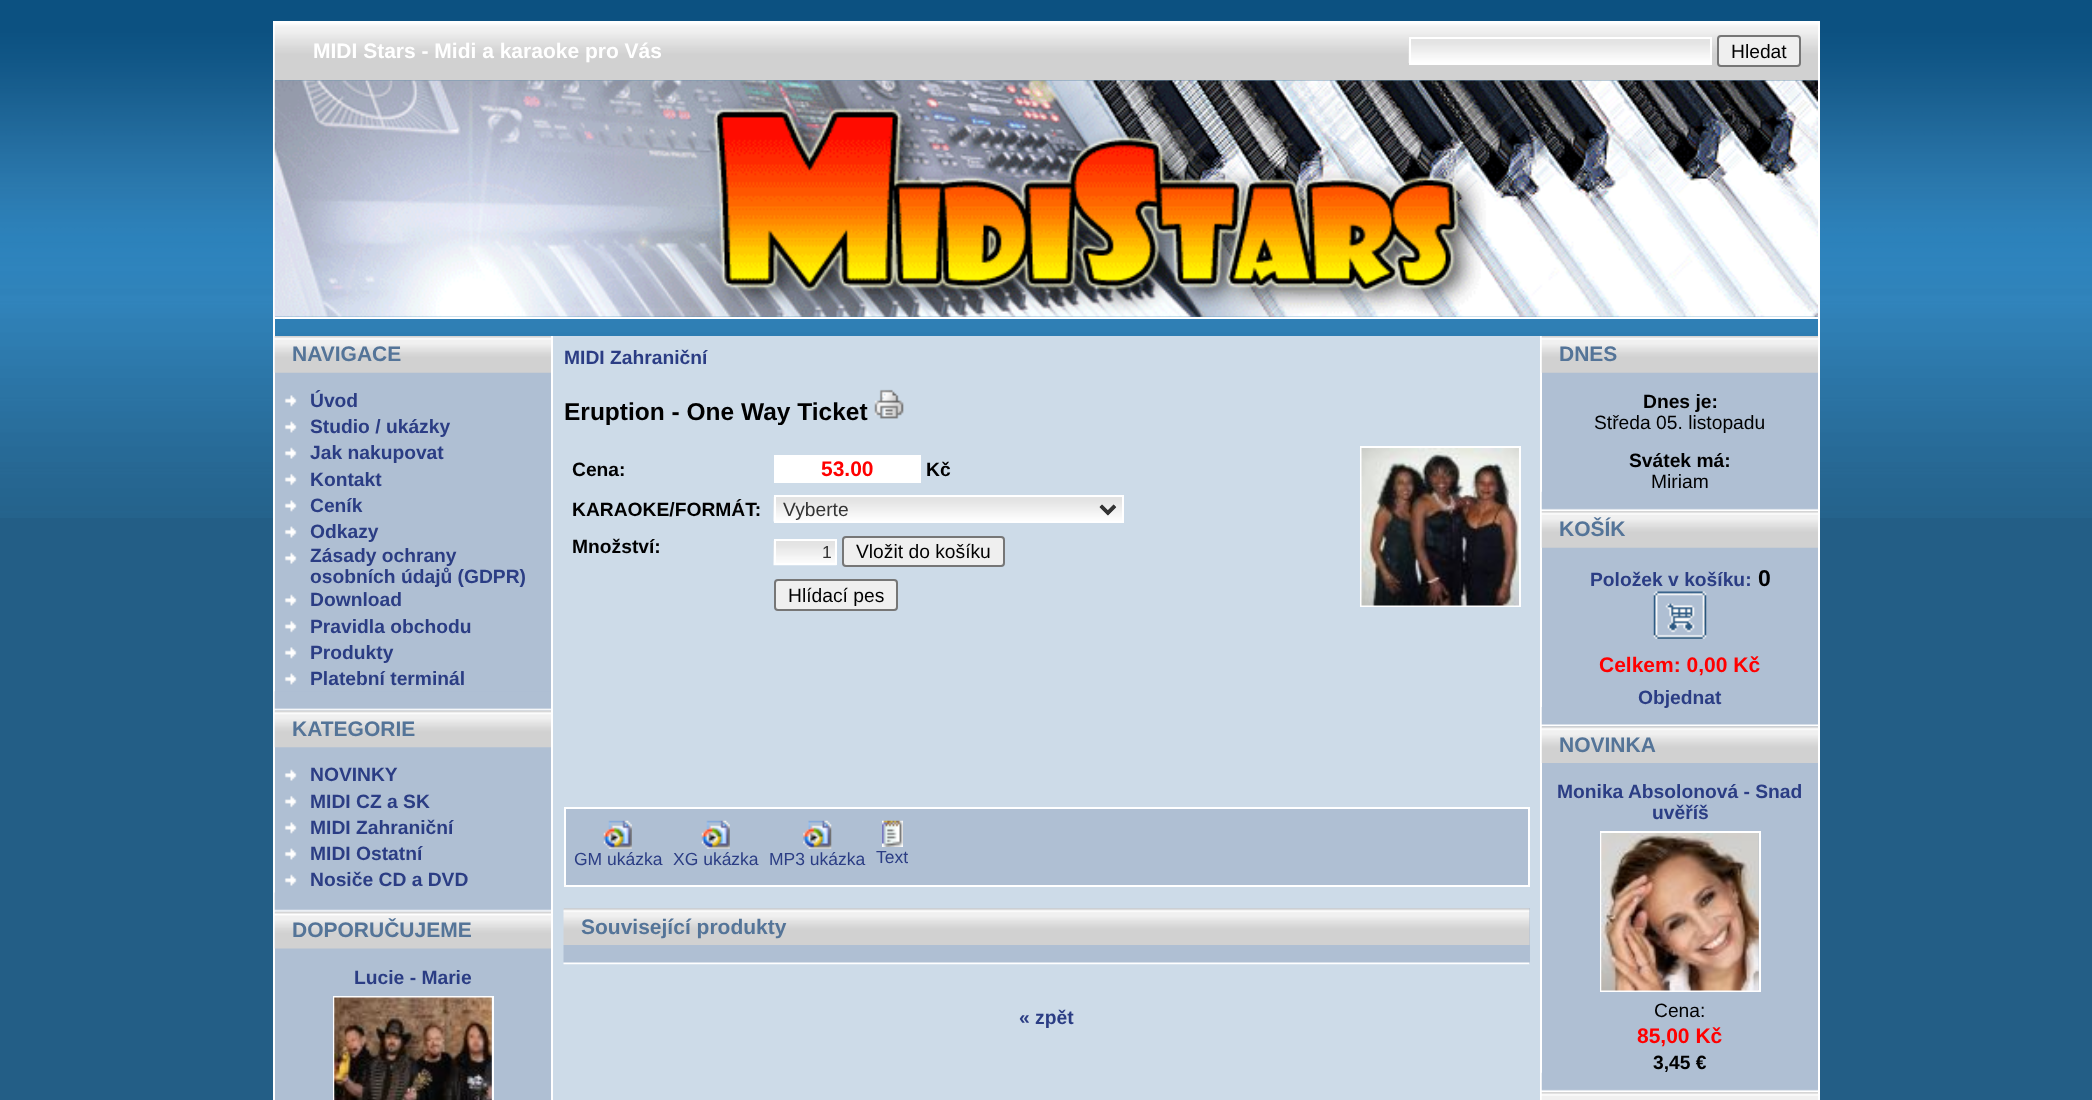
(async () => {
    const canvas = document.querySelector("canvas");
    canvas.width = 2092;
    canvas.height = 1100;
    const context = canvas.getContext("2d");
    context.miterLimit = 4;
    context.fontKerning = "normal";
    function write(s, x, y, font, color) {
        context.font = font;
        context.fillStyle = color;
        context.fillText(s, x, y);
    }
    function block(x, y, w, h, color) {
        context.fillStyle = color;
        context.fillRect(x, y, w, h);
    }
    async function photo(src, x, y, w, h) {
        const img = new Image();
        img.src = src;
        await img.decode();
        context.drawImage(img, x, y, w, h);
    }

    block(0, 0, 2092, 1100, "rgb(35, 94, 134)");
    await photo("media/1.png", 0, 0, 2092, 518);
    block(273, 21, 2, 1079, "rgb(255, 255, 255)");
    await photo("media/2.png", 274, 21, 1042, 60);
    write("MIDI Stars - Midi a karaoke pro Vás", 313, 58, "bold 21px Liberation Sans", "rgb(255, 255, 255)");
    await photo("media/3.png", 1316, 21, 502, 60);
    await photo("media/4.png", 1408, 38, 302, 25);
    context.strokeStyle = "rgb(255, 255, 255)";
    context.lineWidth = 2;
    context.strokeRect(1410, 38, 301, 26);
    context.fillStyle = "rgb(239, 239, 239)";
    context.beginPath();
    context.roundRect(1718, 36, 82, 30, 3);
    context.fill();
    context.strokeStyle = "rgb(118, 118, 118)";
    context.stroke();
    write("Hledat", 1731, 58, "19.25px Liberation Sans", "rgb(0, 0, 0)");
    await photo("media/5.png", 274, 80, 1544, 237);
    block(275, 317, 1543, 2, "rgb(255, 255, 255)");
    block(275, 372, 276, 728, "rgb(175, 191, 211)");
    await photo("media/6.png", 274, 336, 277, 37);
    write("NAVIGACE", 292, 361, "bold 21px Liberation Sans", "rgb(84, 116, 152)");
    await photo("media/7.png", 284, 395, 13, 12);
    write("Úvod", 310, 407, "bold 19.25px Liberation Sans", "rgb(43, 61, 132)");
    await photo("media/8.png", 284, 421, 13, 12);
    write("Studio / ukázky", 310, 433, "bold 19.25px Liberation Sans", "rgb(43, 61, 132)");
    await photo("media/9.png", 284, 447, 13, 12);
    write("Jak nakupovat", 310, 459, "bold 19.25px Liberation Sans", "rgb(43, 61, 132)");
    await photo("media/10.png", 284, 473, 13, 13);
    write("Kontakt", 310, 486, "bold 19.25px Liberation Sans", "rgb(43, 61, 132)");
    await photo("media/7.png", 284, 500, 13, 12);
    write("Ceník", 310, 512, "bold 19.25px Liberation Sans", "rgb(43, 61, 132)");
    await photo("media/8.png", 284, 526, 13, 12);
    write("Odkazy", 310, 538, "bold 19.25px Liberation Sans", "rgb(43, 61, 132)");
    await photo("media/9.png", 284, 552, 13, 12);
    write("Zásady ochrany", 310, 562, "bold 19.25px Liberation Sans", "rgb(43, 61, 132)");
    write("osobních údajů (GDPR)", 310, 583, "bold 19.25px Liberation Sans", "rgb(43, 61, 132)");
    await photo("media/9.png", 284, 594, 13, 12);
    write("Download", 310, 606, "bold 19.25px Liberation Sans", "rgb(43, 61, 132)");
    await photo("media/10.png", 284, 620, 13, 13);
    write("Pravidla obchodu", 310, 633, "bold 19.25px Liberation Sans", "rgb(43, 61, 132)");
    await photo("media/7.png", 284, 647, 13, 12);
    write("Produkty", 310, 659, "bold 19.25px Liberation Sans", "rgb(43, 61, 132)");
    await photo("media/8.png", 284, 673, 13, 12);
    write("Platební terminál", 310, 685, "bold 19.25px Liberation Sans", "rgb(43, 61, 132)");
    await photo("media/11.png", 274, 691, 277, 20);
    await photo("media/12.png", 274, 710, 277, 38);
    write("KATEGORIE", 292, 736, "bold 21px Liberation Sans", "rgb(84, 116, 152)");
    await photo("media/9.png", 284, 769, 13, 12);
    write("NOVINKY", 310, 781, "bold 19.25px Liberation Sans", "rgb(43, 61, 132)");
    await photo("media/10.png", 284, 795, 13, 13);
    write("MIDI CZ a SK", 310, 808, "bold 19.25px Liberation Sans", "rgb(43, 61, 132)");
    await photo("media/7.png", 284, 822, 13, 12);
    write("MIDI Zahraniční", 310, 834, "bold 19.25px Liberation Sans", "rgb(43, 61, 132)");
    await photo("media/8.png", 284, 848, 13, 12);
    write("MIDI Ostatní", 310, 860, "bold 19.25px Liberation Sans", "rgb(43, 61, 132)");
    await photo("media/9.png", 284, 874, 13, 12);
    write("Nosiče CD a DVD", 310, 886, "bold 19.25px Liberation Sans", "rgb(43, 61, 132)");
    await photo("media/13.png", 274, 892, 277, 20);
    await photo("media/14.png", 274, 911, 277, 38);
    write("DOPORUČUJEME", 292, 937, "bold 21px Liberation Sans", "rgb(84, 116, 152)");
    write("Lucie - Marie", 354, 984, "bold 19.25px Liberation Sans", "rgb(43, 61, 132)");
    context.strokeStyle = "rgb(255, 255, 255)";
    context.strokeRect(334, 997, 159, 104);
    await photo("media/15.png", 334, 997, 158, 103);
    block(551, 336, 2, 764, "rgb(255, 255, 255)");
    block(553, 336, 987, 764, "rgb(205, 219, 232)");
    write("MIDI Zahraniční", 564, 364, "bold 19.25px Liberation Sans", "rgb(43, 61, 132)");
    write("Eruption - One Way Ticket", 564, 420, "bold 24.5px Liberation Sans", "rgb(0, 0, 0)");
    await photo("media/16.png", 874, 389, 30, 30);
    write("Cena:", 572, 476, "bold 19.25px Liberation Sans", "rgb(0, 0, 0)");
    block(774, 455, 147, 28, "rgb(255, 255, 255)");
    write("53.00", 821, 476, "bold 21px Liberation Sans", "rgb(255, 0, 0)");
    write("Kč", 926, 476, "bold 19.25px Liberation Sans", "rgb(0, 0, 0)");
    write("KARAOKE/FORMÁT:", 572, 516, "bold 19.25px Liberation Sans", "rgb(0, 0, 0)");
    await photo("media/17.png", 773, 497, 349, 25);
    context.strokeRect(775, 496, 348, 26);
    context.beginPath();
    context.moveTo(1101, 506);
    context.lineTo(1108, 513);
    context.lineTo(1115, 506);
    context.strokeStyle = "rgb(51, 51, 51)";
    context.lineWidth = 3.5;
    context.stroke();
    write("Vyberte", 783, 516, "19.25px Liberation Sans", "rgb(51, 51, 51)");
    write("Množství:", 572, 553, "bold 19.25px Liberation Sans", "rgb(0, 0, 0)");
    await photo("media/18.png", 773, 540, 64, 26);
    context.strokeStyle = "rgb(255, 255, 255)";
    context.lineWidth = 2;
    context.strokeRect(775, 540, 61, 24);
    write("1", 822, 558, "17.5px Liberation Sans", "rgb(51, 51, 51)");
    context.fillStyle = "rgb(239, 239, 239)";
    context.beginPath();
    context.roundRect(843, 537, 161, 29, 3);
    context.fill();
    context.strokeStyle = "rgb(118, 118, 118)";
    context.stroke();
    write("Vložit do košíku", 856, 558, "19.25px Liberation Sans", "rgb(0, 0, 0)");
    context.fillStyle = "rgb(239, 239, 239)";
    context.beginPath();
    context.roundRect(775, 580, 122, 30, 3);
    context.fill();
    context.stroke();
    write("Hlídací pes", 788, 602, "19.25px Liberation Sans", "rgb(0, 0, 0)");
    context.strokeStyle = "rgb(255, 255, 255)";
    context.strokeRect(1361, 447, 159, 159);
    await photo("media/19.png", 1361, 448, 158, 158);
    context.fillStyle = "rgb(175, 191, 211)";
    context.beginPath();
    context.rect(565, 808, 964, 78);
    context.fill();
    context.stroke();
    await photo("media/20.png", 603, 820, 29, 29);
    write("GM ukázka", 574, 865, "17.5px Liberation Sans", "rgb(43, 61, 132)");
    await photo("media/21.png", 701, 820, 29, 29);
    write("XG ukázka", 673, 865, "17.5px Liberation Sans", "rgb(43, 61, 132)");
    await photo("media/22.png", 803, 820, 29, 29);
    write("MP3 ukázka", 769, 865, "17.5px Liberation Sans", "rgb(43, 61, 132)");
    await photo("media/23.png", 882, 820, 21, 27);
    write("Text", 876, 863, "17.5px Liberation Sans", "rgb(43, 61, 132)");
    block(564, 908, 966, 56, "rgb(175, 191, 211)");
    await photo("media/24.png", 563, 908, 967, 37);
    write("Související produkty", 581, 934, "bold 21px Liberation Sans", "rgb(84, 116, 152)");
    await photo("media/25.png", 563, 945, 967, 20);
    write("« zpět", 1019, 1024, "bold 19.25px Liberation Sans", "rgb(43, 61, 132)");
    block(1540, 336, 2, 764, "rgb(255, 255, 255)");
    block(1542, 372, 276, 335, "rgb(175, 191, 211)");
    await photo("media/6.png", 1541, 336, 277, 37);
    write("DNES", 1559, 361, "bold 21px Liberation Sans", "rgb(84, 116, 152)");
    write("Dnes je:", 1643, 408, "bold 19.25px Liberation Sans", "rgb(0, 0, 0)");
    write("Středa 05. listopadu", 1594, 429, "19.25px Liberation Sans", "rgb(0, 0, 0)");
    write("Svátek má:", 1629, 467, "bold 19.25px Liberation Sans", "rgb(0, 0, 0)");
    write("Miriam", 1651, 488, "19.25px Liberation Sans", "rgb(0, 0, 0)");
    await photo("media/26.png", 1541, 491, 277, 20);
    await photo("media/6.png", 1541, 511, 277, 37);
    write("KOŠÍK", 1559, 536, "bold 21px Liberation Sans", "rgb(84, 116, 152)");
    write("Položek v košíku:", 1590, 586, "bold 19.25px Liberation Sans", "rgb(43, 61, 132)");
    write("0", 1758, 586, "bold 23px Liberation Sans", "rgb(0, 0, 0)");
    await photo("media/27.png", 1653, 591, 54, 48);
    write("Celkem: 0,00 Kč", 1599, 672, "bold 21px Liberation Sans", "rgb(255, 0, 0)");
    await photo("media/28.png", 1541, 707, 277, 20);
    write("Objednat", 1638, 704, "bold 19.25px Liberation Sans", "rgb(43, 61, 132)");
    block(1542, 726, 276, 347, "rgb(175, 191, 211)");
    await photo("media/29.png", 1541, 726, 277, 37);
    write("NOVINKA", 1559, 752, "bold 21px Liberation Sans", "rgb(84, 116, 152)");
    write("Monika Absolonová - Snad", 1557, 798, "bold 19.25px Liberation Sans", "rgb(43, 61, 132)");
    write("uvěříš", 1652, 819, "bold 19.25px Liberation Sans", "rgb(43, 61, 132)");
    context.strokeRect(1601, 832, 159, 159);
    await photo("media/30.png", 1601, 833, 158, 158);
    write("Cena:", 1654, 1017, "19.25px Liberation Sans", "rgb(0, 0, 0)");
    write("85,00 Kč", 1637, 1043, "bold 21px Liberation Sans", "rgb(255, 0, 0)");
    write("3,45 €", 1653, 1069, "bold 19.25px Liberation Sans", "rgb(0, 0, 0)");
    await photo("media/26.png", 1541, 1072, 277, 20);
    await photo("media/31.png", 1541, 1092, 277, 8);
    block(1818, 21, 2, 1079, "rgb(255, 255, 255)");
})();
